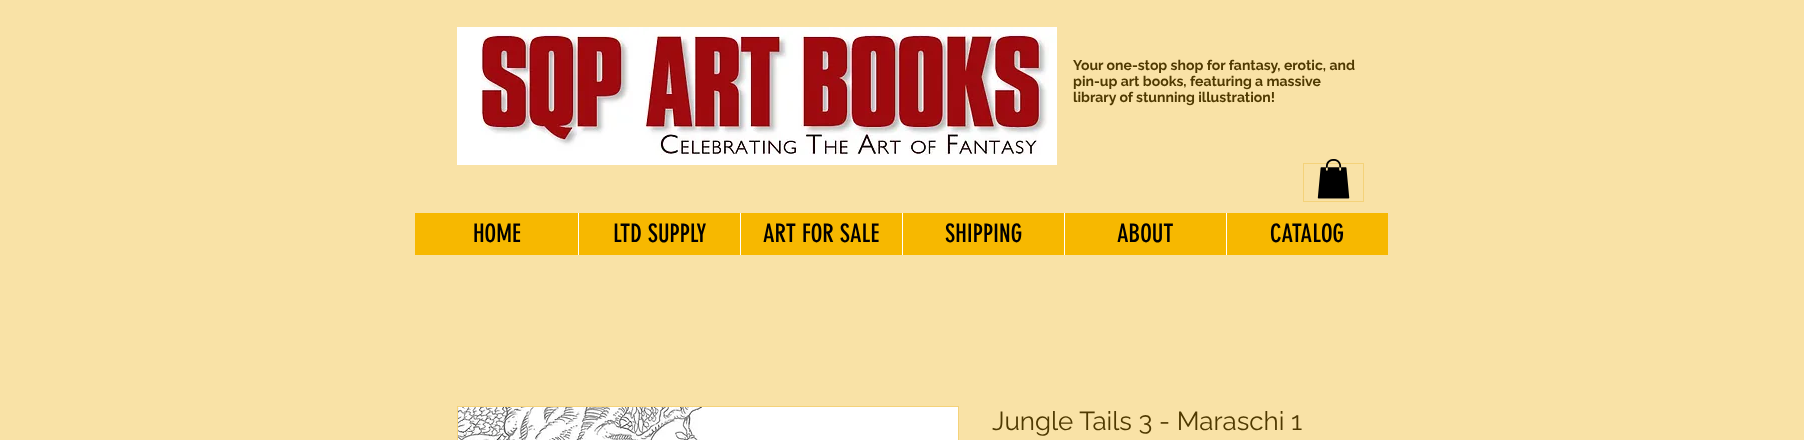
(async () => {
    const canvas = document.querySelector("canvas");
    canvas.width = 1804;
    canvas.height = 440;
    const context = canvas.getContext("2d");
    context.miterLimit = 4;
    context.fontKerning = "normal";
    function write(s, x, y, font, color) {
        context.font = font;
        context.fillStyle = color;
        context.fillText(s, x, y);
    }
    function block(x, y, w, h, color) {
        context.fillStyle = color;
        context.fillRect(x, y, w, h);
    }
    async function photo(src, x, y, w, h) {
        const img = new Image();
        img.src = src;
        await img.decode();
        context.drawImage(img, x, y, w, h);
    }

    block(0, 0, 1804, 440, "rgb(249, 226, 166)");
    await photo("media/1.png", 457, 27, 600, 138);
    write("Your one-stop shop for fantasy, erotic, and", 1073, 70, "bold 14px Raleway", "rgb(79, 57, 0)");
    write("pin-up art books, featuring a massive", 1073, 86, "bold 14px Raleway", "rgb(79, 57, 0)");
    write("library of stunning illustration!", 1073, 102, "bold 14px Raleway", "rgb(79, 57, 0)");
    context.strokeStyle = "rgb(244, 210, 122)";
    context.strokeRect(1303.5, 163.5, 60, 38);
    await photo("media/2.png", 1317, 159, 33, 40);
    block(415, 213, 973, 42, "rgb(247, 184, 0)");
    write("HOME", 473, 242, "25px 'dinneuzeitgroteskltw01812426'", "rgb(0, 0, 0)");
    block(578, 213, 1, 42, "rgb(255, 255, 255)");
    write("LTD SUPPLY", 613, 242, "25px 'dinneuzeitgroteskltw01812426'", "rgb(0, 0, 0)");
    block(740, 213, 1, 42, "rgb(255, 255, 255)");
    write("ART FOR SALE", 763, 242, "25px 'dinneuzeitgroteskltw01812426'", "rgb(0, 0, 0)");
    block(902, 213, 1, 42, "rgb(255, 255, 255)");
    write("SHIPPING", 945, 242, "25px 'dinneuzeitgroteskltw01812426'", "rgb(0, 0, 0)");
    block(1064, 213, 1, 42, "rgb(255, 255, 255)");
    write("ABOUT", 1117, 242, "25px 'dinneuzeitgroteskltw01812426'", "rgb(0, 0, 0)");
    block(1226, 213, 1, 42, "rgb(255, 255, 255)");
    write("CATALOG", 1270, 242, "25px 'dinneuzeitgroteskltw01812426'", "rgb(0, 0, 0)");
    context.strokeRect(457.5, 406.5, 501, 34);
    await photo("media/3.png", 458, 407, 500, 33);
    write("Jungle Tails 3 - Maraschi 1", 992, 430, "26px Raleway", "rgb(79, 57, 0)");
})();
